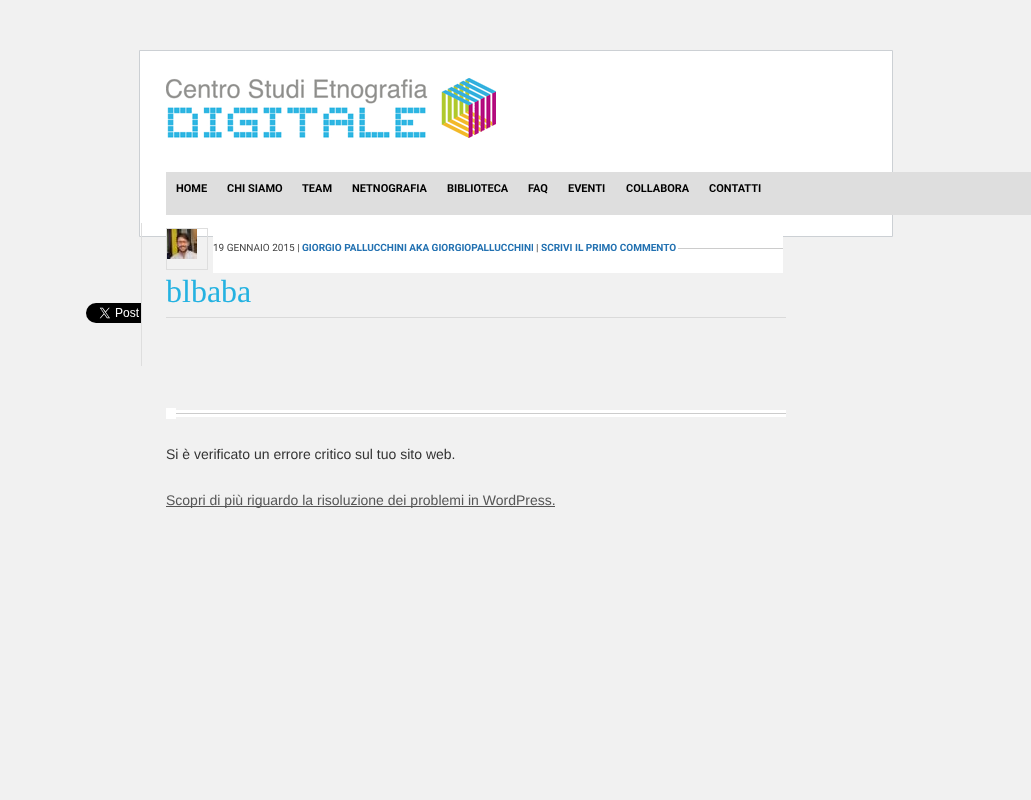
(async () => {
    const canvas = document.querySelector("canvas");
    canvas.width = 1031;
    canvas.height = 800;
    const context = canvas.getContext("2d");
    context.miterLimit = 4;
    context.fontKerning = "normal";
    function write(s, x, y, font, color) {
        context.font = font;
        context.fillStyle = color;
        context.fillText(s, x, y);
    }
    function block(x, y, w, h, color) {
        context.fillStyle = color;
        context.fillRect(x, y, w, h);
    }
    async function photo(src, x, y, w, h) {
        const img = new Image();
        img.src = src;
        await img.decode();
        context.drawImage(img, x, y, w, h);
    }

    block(0, 0, 1031, 800, "rgb(241, 241, 241)");
    context.fillStyle = "rgb(255, 255, 255)";
    context.beginPath();
    context.rect(139.5, 50.5, 753, 186);
    context.fill();
    context.strokeStyle = "rgb(204, 208, 212)";
    context.stroke();
    await photo("media/1.png", 166, 78, 330, 60);
    block(166, 172, 865, 43, "rgb(222, 222, 222)");
    write("HOME", 176, 192, "bold 11px Roboto", "rgb(0, 0, 0)");
    write("CHI SIAMO", 227, 192, "bold 11px Roboto", "rgb(0, 0, 0)");
    write("TEAM", 302, 192, "bold 11px Roboto", "rgb(0, 0, 0)");
    write("NETNOGRAFIA", 352, 192, "bold 11px Roboto", "rgb(0, 0, 0)");
    write("BIBLIOTECA", 447, 192, "bold 11px Roboto", "rgb(0, 0, 0)");
    write("FAQ", 528, 192, "bold 11px Roboto", "rgb(0, 0, 0)");
    write("EVENTI", 568, 192, "bold 11px Roboto", "rgb(0, 0, 0)");
    write("COLLABORA", 626, 192, "bold 11px Roboto", "rgb(0, 0, 0)");
    write("CONTATTI", 709, 192, "bold 11px Roboto", "rgb(0, 0, 0)");
    context.strokeStyle = "rgb(222, 222, 222)";
    context.strokeRect(166.5, 228.5, 41, 41);
    await photo("media/2.png", 167, 229, 30, 30);
    await photo("media/3.png", 213, 236, 570, 37);
    block(213, 248, 320, 1, "rgb(255, 255, 255)");
    write("19 GENNAIO 2015 |", 213, 251, "10px Roboto", "rgb(68, 68, 68)");
    write("GIORGIO PALLUCCHINI AKA GIORGIOPALLUCCHINI", 302, 251, "bold 10px Roboto", "rgb(34, 113, 177)");
    block(533, 242, 8, 11, "rgb(255, 255, 255)");
    write("|", 536, 251, "10px Roboto", "rgb(68, 68, 68)");
    block(541, 248, 137, 1, "rgb(255, 255, 255)");
    write("SCRIVI IL PRIMO COMMENTO", 541, 251, "bold 10px Roboto", "rgb(34, 113, 177)");
    block(141, 223, 1, 143, "rgb(222, 222, 222)");
    await photo("media/4.png", 86, 303, 55, 20);
    block(166, 317, 620, 1, "rgb(218, 218, 218)");
    write("blbaba", 166, 302, "32px Liberation Serif", "rgb(36, 178, 225)");
    await photo("media/5.png", 176, 410, 610, 7);
    block(166, 408, 10, 11, "rgb(255, 255, 255)");
    write("Si è verificato un errore critico sul tuo sito web.", 166, 459, "14px Liberation Sans", "rgb(51, 51, 51)");
    block(166, 506, 389, 1, "rgb(85, 85, 85)");
    write("Scopri di più riguardo la risoluzione dei problemi in WordPress.", 166, 505, "14px Liberation Sans", "rgb(85, 85, 85)");
})();
